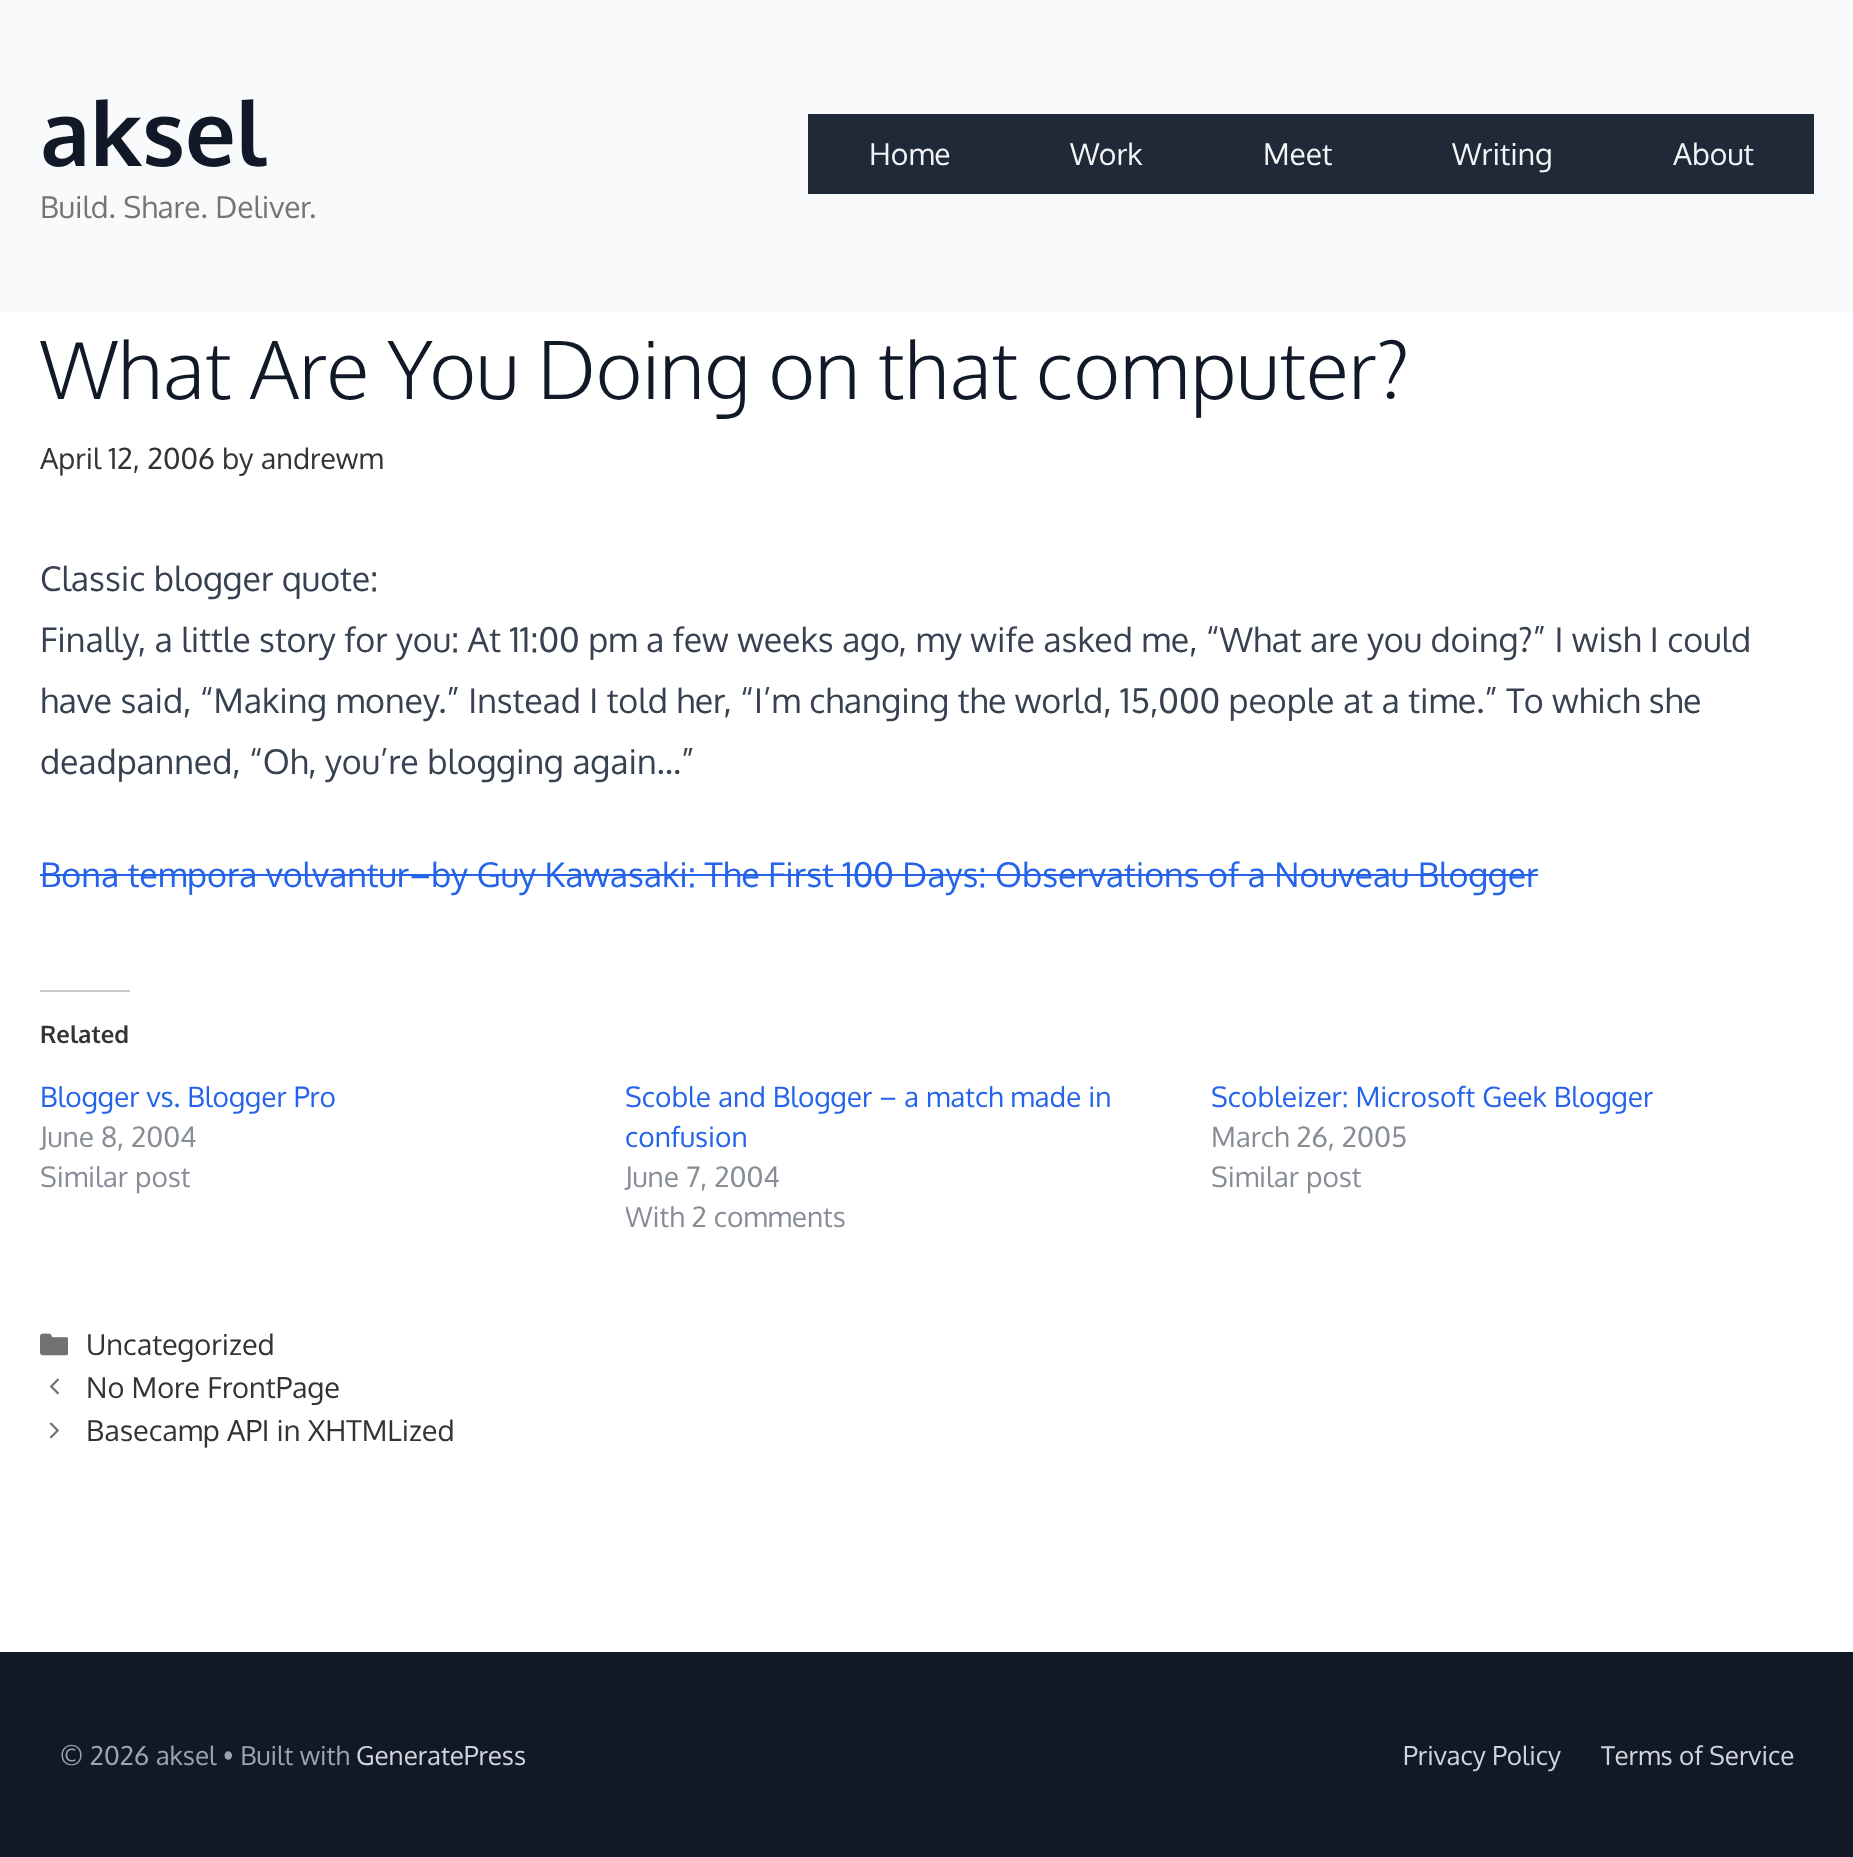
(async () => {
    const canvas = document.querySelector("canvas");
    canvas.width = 1853;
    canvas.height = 1857;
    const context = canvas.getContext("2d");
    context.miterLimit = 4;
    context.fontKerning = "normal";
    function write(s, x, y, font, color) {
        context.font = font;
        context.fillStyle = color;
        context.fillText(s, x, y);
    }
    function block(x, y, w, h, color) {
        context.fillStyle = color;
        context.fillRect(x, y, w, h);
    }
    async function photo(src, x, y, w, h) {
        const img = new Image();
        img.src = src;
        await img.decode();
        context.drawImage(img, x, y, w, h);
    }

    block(0, 0, 1853, 1857, "rgb(249, 250, 251)");
    write("aksel", 40, 166, "bold 90px Oxygen", "rgb(17, 24, 39)");
    write("Build. Share. Deliver.", 40, 218, "30px Oxygen", "rgb(117, 117, 117)");
    block(808, 114, 1006, 80, "rgb(31, 41, 55)");
    write("Home", 869, 165, "30px Oxygen", "rgb(243, 244, 246)");
    write("Work", 1070, 165, "30px Oxygen", "rgb(243, 244, 246)");
    write("Meet", 1263, 165, "30px Oxygen", "rgb(243, 244, 246)");
    write("Writing", 1452, 165, "30px Oxygen", "rgb(243, 244, 246)");
    write("About", 1673, 165, "30px Oxygen", "rgb(243, 244, 246)");
    block(0, 312, 1853, 1340, "rgb(255, 255, 255)");
    write("What Are You Doing on that computer?", 40, 399, "300 80px Oxygen", "rgb(17, 24, 39)");
    write("April 12, 2006 by andrewm", 40, 469, "28.9px Oxygen", "rgb(51, 51, 51)");
    write("Classic blogger quote:", 40, 591, "34px Oxygen", "rgb(55, 65, 81)");
    write("Finally, a little story for you: At 11:00 pm a few weeks ago, my wife asked me, “What are you doing?” I wish I could", 40, 652, "34px Oxygen", "rgb(55, 65, 81)");
    write("have said, “Making money.” Instead I told her, “I’m changing the world, 15,000 people at a time.” To which she", 40, 713, "34px Oxygen", "rgb(55, 65, 81)");
    write("deadpanned, “Oh, you’re blogging again…”", 40, 774, "34px Oxygen", "rgb(55, 65, 81)");
    write("Bona tempora volvantur–by Guy Kawasaki: The First 100 Days: Observations of a Nouveau Blogger", 40, 887, "34px Oxygen", "rgb(37, 99, 235)");
    block(40, 874, 1498, 2, "rgb(37, 99, 235)");
    block(40, 990, 90, 2, "rgb(204, 204, 204)");
    write("Related", 40, 1043, "bold 24px Oxygen", "rgb(51, 51, 51)");
    write("Blogger vs. Blogger Pro", 40, 1107, "28px Oxygen", "rgb(37, 99, 235)");
    write("June 8, 2004", 40, 1147, "28px Oxygen", "rgb(135, 141, 151)");
    write("Similar post", 40, 1187, "28px Oxygen", "rgb(135, 141, 151)");
    write("Scoble and Blogger – a match made in", 625, 1107, "28px Oxygen", "rgb(37, 99, 235)");
    write("confusion", 625, 1147, "28px Oxygen", "rgb(37, 99, 235)");
    write("June 7, 2004", 625, 1187, "28px Oxygen", "rgb(135, 141, 151)");
    context.save();
    context.beginPath();
    context.rect(626, 1196, 526, 40);
    context.clip();
    write("With 2 comments", 625, 1227, "28px Oxygen", "rgb(135, 141, 151)");
    context.restore();
    write("Scobleizer: Microsoft Geek Blogger", 1211, 1107, "28px Oxygen", "rgb(37, 99, 235)");
    write("March 26, 2005", 1211, 1147, "28px Oxygen", "rgb(135, 141, 151)");
    write("Similar post", 1211, 1187, "28px Oxygen", "rgb(135, 141, 151)");
    await photo("media/1.png", 40, 1333, 28, 23);
    write("Uncategorized", 86, 1355, "28.9px Oxygen", "rgb(51, 51, 51)");
    await photo("media/2.png", 49, 1378, 10, 17);
    write("No More FrontPage", 86, 1398, "28.9px Oxygen", "rgb(51, 51, 51)");
    await photo("media/3.png", 49, 1422, 10, 17);
    write("Basecamp API in XHTMLized", 86, 1441, "28.9px Oxygen", "rgb(51, 51, 51)");
    block(0, 1652, 1853, 205, "rgb(17, 24, 39)");
    write("© 2026 aksel • Built with", 60, 1765, "26px Oxygen", "rgb(156, 163, 175)");
    write("GeneratePress", 356, 1765, "26px Oxygen", "rgb(209, 213, 219)");
    write("Privacy Policy", 1403, 1765, "26px Oxygen", "rgb(209, 213, 219)");
    write("Terms of Service", 1601, 1765, "26px Oxygen", "rgb(209, 213, 219)");
})();
